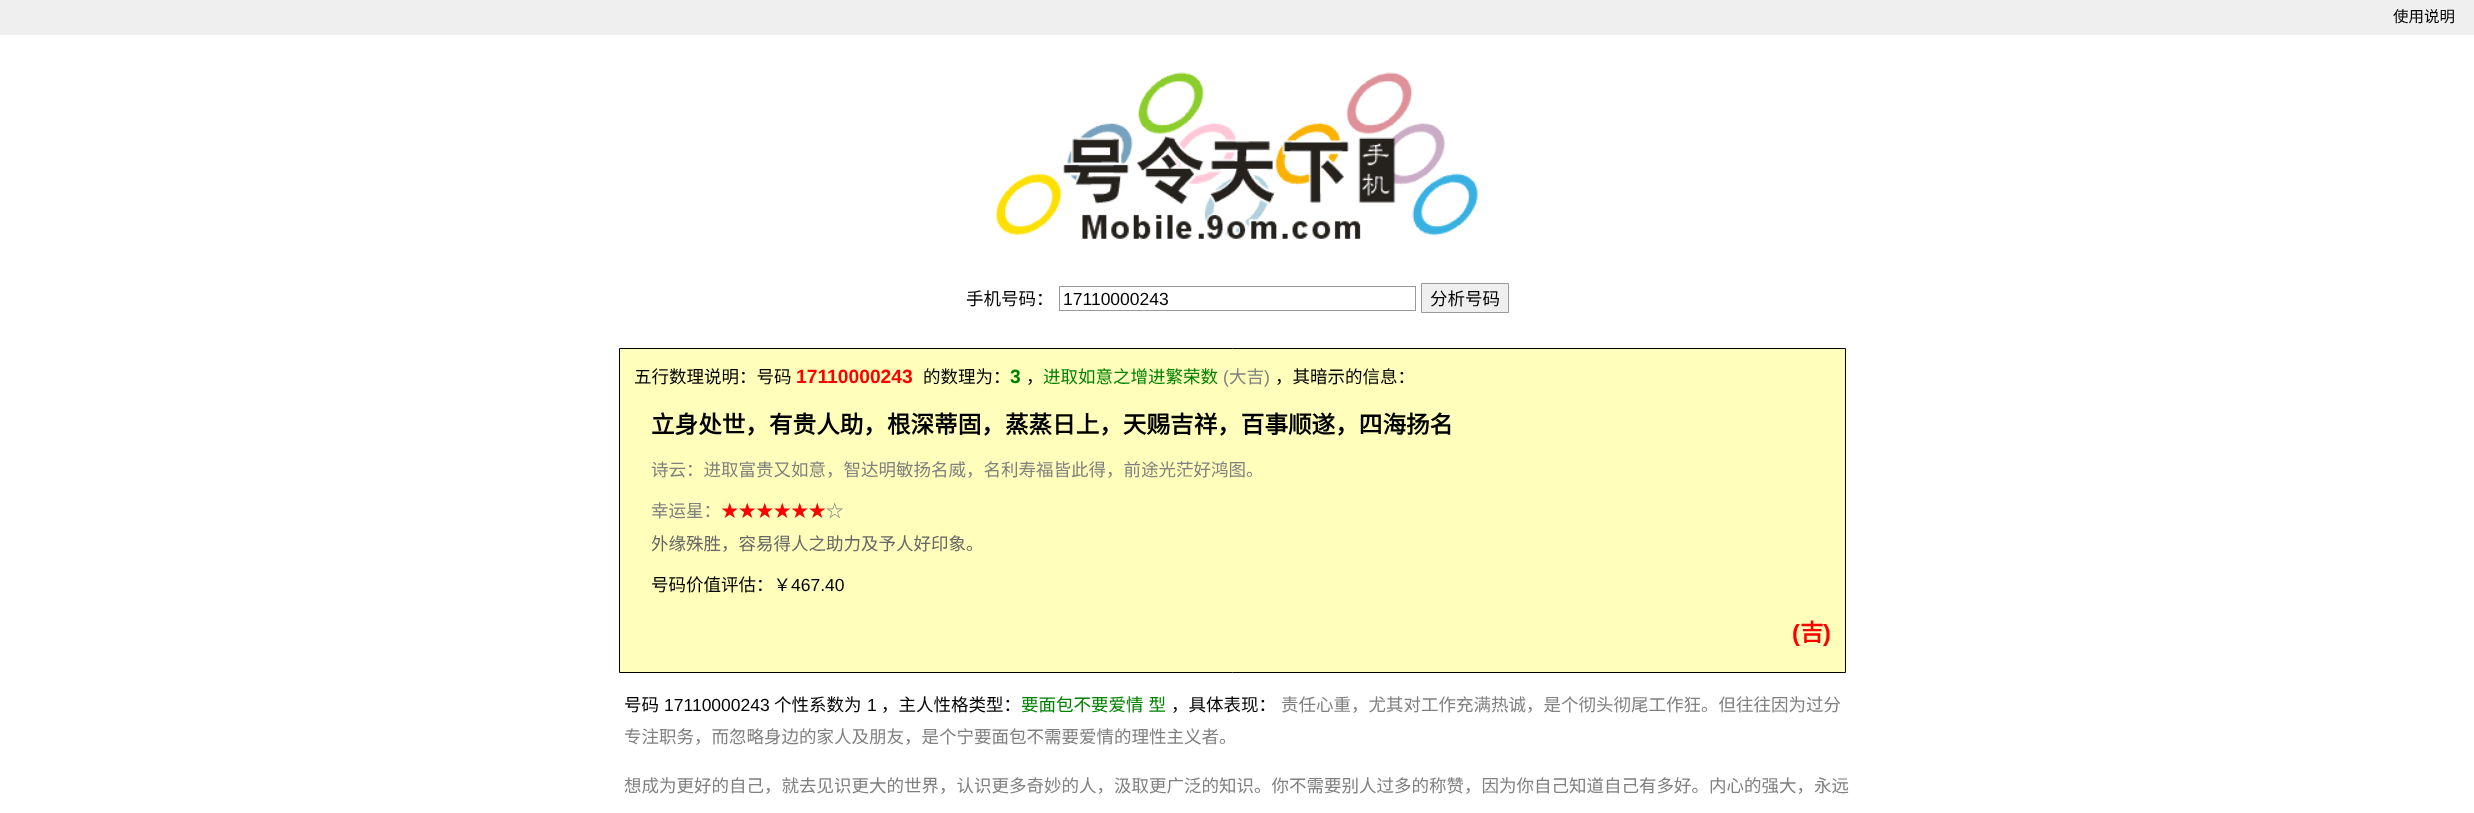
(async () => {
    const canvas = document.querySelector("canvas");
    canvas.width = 2474;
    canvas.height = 813;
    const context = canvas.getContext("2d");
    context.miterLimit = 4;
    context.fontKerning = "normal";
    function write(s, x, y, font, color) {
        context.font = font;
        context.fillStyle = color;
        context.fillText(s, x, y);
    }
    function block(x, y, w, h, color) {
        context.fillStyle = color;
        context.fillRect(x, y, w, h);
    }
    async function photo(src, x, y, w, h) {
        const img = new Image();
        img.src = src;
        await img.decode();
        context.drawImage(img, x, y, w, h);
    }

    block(0, 0, 2474, 813, "rgb(255, 255, 255)");
    block(0, 0, 2474, 35, "rgb(239, 239, 239)");
    write("使用说明", 2393, 22, "15.5px Noto Sans CJK SC", "rgb(0, 0, 0)");
    await photo("media/1.png", 996, 72, 482, 167);
    write("手机号码：", 966, 305, "17.5px Noto Sans CJK SC", "rgb(0, 0, 0)");
    context.strokeStyle = "rgb(153, 153, 153)";
    context.strokeRect(1059.5, 286.5, 356, 24);
    write("17110000243", 1063, 305, "17.5px Liberation Sans", "rgb(0, 0, 0)");
    context.fillStyle = "rgb(239, 239, 239)";
    context.beginPath();
    context.rect(1421.5, 283.5, 87, 29);
    context.fill();
    context.stroke();
    write("分析号码", 1430, 305, "17.5px Noto Sans CJK SC", "rgb(0, 0, 0)");
    context.fillStyle = "rgb(255, 255, 187)";
    context.beginPath();
    context.rect(619.5, 348.5, 1226, 324);
    context.fill();
    context.strokeStyle = "rgb(0, 0, 0)";
    context.stroke();
    write("五行数理说明：号码", 634, 383, "17.5px Noto Sans CJK SC", "rgb(0, 0, 0)");
    write("17110000243", 796, 383, "bold 19.25px Liberation Sans", "rgb(255, 0, 0)");
    write("的数理为：", 923, 383, "17.5px Noto Sans CJK SC", "rgb(0, 0, 0)");
    write("3", 1010, 383, "bold 19.25px Liberation Sans", "rgb(0, 128, 0)");
    write("，", 1026, 383, "17.5px Noto Sans CJK SC", "rgb(0, 0, 0)");
    write("进取如意之增进繁荣数", 1043, 383, "17.5px Noto Sans CJK SC", "rgb(0, 128, 0)");
    write("(", 1223, 383, "17.5px Liberation Sans", "rgb(128, 128, 128)");
    write("大吉", 1229, 383, "17.5px Noto Sans CJK SC", "rgb(128, 128, 128)");
    write(")", 1264, 383, "17.5px Liberation Sans", "rgb(128, 128, 128)");
    write("，其暗示的信息：", 1275, 383, "17.5px Noto Sans CJK SC", "rgb(0, 0, 0)");
    write("立身处世，有贵人助，根深蒂固，蒸蒸日上，天赐吉祥，百事顺遂，四海扬名", 651, 433, "bold 23.6px Noto Sans CJK SC", "rgb(0, 0, 0)");
    write("诗云：进取富贵又如意，智达明敏扬名威，名利寿福皆此得，前途光茫好鸿图。", 651, 476, "17.5px Noto Sans CJK SC", "rgb(128, 128, 128)");
    write("幸运星：", 651, 517, "17.5px Noto Sans CJK SC", "rgb(128, 128, 128)");
    write("★★★★★★", 721, 517, "17.5px Noto Sans CJK SC", "rgb(255, 0, 0)");
    write("☆", 826, 517, "17.5px Noto Sans CJK SC", "rgb(128, 128, 128)");
    write("外缘殊胜，容易得人之助力及予人好印象。", 651, 550, "17.5px Noto Sans CJK SC", "rgb(102, 102, 102)");
    write("号码价值评估：￥", 651, 591, "17.5px Noto Sans CJK SC", "rgb(0, 0, 0)");
    write("467.40", 791, 591, "17.5px Liberation Sans", "rgb(0, 0, 0)");
    write("(", 1792, 641, "bold 23.6px Liberation Sans", "rgb(255, 0, 0)");
    write("吉", 1800, 641, "bold 23.6px Noto Sans CJK SC", "rgb(255, 0, 0)");
    write(")", 1823, 641, "bold 23.6px Liberation Sans", "rgb(255, 0, 0)");
    write("号码", 624, 711, "17.5px Noto Sans CJK SC", "rgb(0, 0, 0)");
    write("17110000243", 664, 711, "17.5px Liberation Sans", "rgb(0, 0, 0)");
    write("个性系数为", 774, 711, "17.5px Noto Sans CJK SC", "rgb(0, 0, 0)");
    write("1", 867, 711, "17.5px Liberation Sans", "rgb(0, 0, 0)");
    write("，主人性格类型：", 881, 711, "17.5px Noto Sans CJK SC", "rgb(0, 0, 0)");
    context.wordSpacing = "1px";
    write("要面包不要爱情 型", 1021, 711, "17.5px Noto Sans CJK SC", "rgb(0, 128, 0)");
    context.wordSpacing = "0px";
    write("，具体表现：", 1171, 711, "17.5px Noto Sans CJK SC", "rgb(0, 0, 0)");
    write("责任心重，尤其对工作充满热诚，是个彻头彻尾工作狂。但往往因为过分", 1281, 711, "17.5px Noto Sans CJK SC", "rgb(128, 128, 128)");
    write("专注职务，而忽略身边的家人及朋友，是个宁要面包不需要爱情的理性主义者。", 624, 743, "17.5px Noto Sans CJK SC", "rgb(128, 128, 128)");
    write("想成为更好的自己，就去见识更大的世界，认识更多奇妙的人，汲取更广泛的知识。你不需要别人过多的称赞，因为你自己知道自己有多好。内心的强大，永远", 624, 792, "17.5px Noto Sans CJK SC", "rgb(128, 128, 128)");
})();
